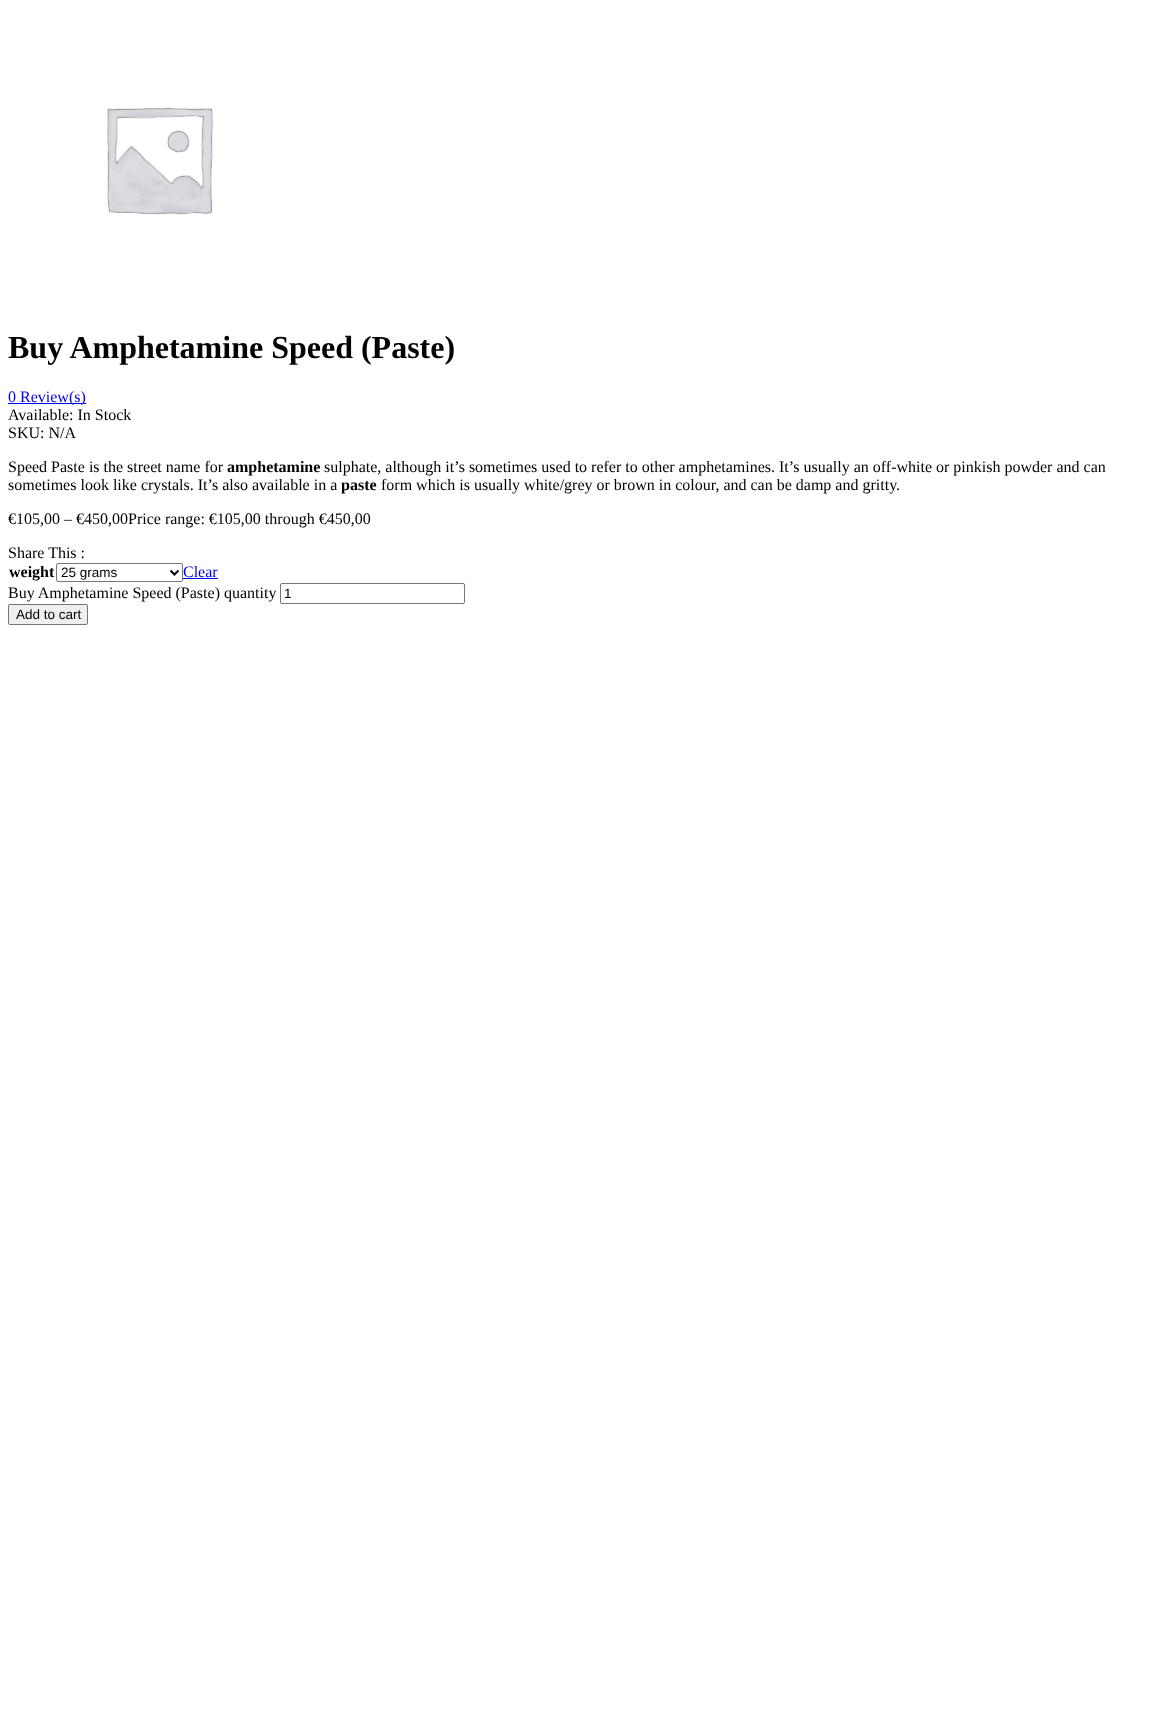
(async () => {
    const canvas = document.querySelector("canvas");
    canvas.width = 1171;
    canvas.height = 1713;
    const context = canvas.getContext("2d");
    context.miterLimit = 4;
    context.fontKerning = "normal";
    function write(s, x, y, font, color) {
        context.font = font;
        context.fillStyle = color;
        context.fillText(s, x, y);
    }
    function block(x, y, w, h, color) {
        context.fillStyle = color;
        context.fillRect(x, y, w, h);
    }
    async function photo(src, x, y, w, h) {
        const img = new Image();
        img.src = src;
        await img.decode();
        context.drawImage(img, x, y, w, h);
    }

    block(0, 0, 1171, 1713, "rgb(255, 255, 255)");
    await photo("media/1.png", 107, 107, 106, 108);
    write("Buy Amphetamine Speed (Paste)", 8, 358, "bold 32px Liberation Serif", "rgb(0, 0, 0)");
    block(8, 403, 78, 1, "rgb(0, 0, 238)");
    write("0 Review(s)", 8, 402, "16px Liberation Serif", "rgb(0, 0, 238)");
    write("Available: In Stock", 8, 420, "16px Liberation Serif", "rgb(0, 0, 0)");
    write("SKU: N/A", 8, 438, "16px Liberation Serif", "rgb(0, 0, 0)");
    write("Speed Paste is the street name for", 8, 472, "16px Liberation Serif", "rgb(0, 0, 0)");
    write("amphetamine", 227, 472, "bold 16px Liberation Serif", "rgb(0, 0, 0)");
    write("sulphate, although it’s sometimes used to refer to other amphetamines. It’s usually an off-white or pinkish powder and can", 324, 472, "16px Liberation Serif", "rgb(0, 0, 0)");
    write("sometimes look like crystals. It’s also available in a", 8, 490, "16px Liberation Serif", "rgb(0, 0, 0)");
    write("paste", 341, 490, "bold 16px Liberation Serif", "rgb(0, 0, 0)");
    write("form which is usually white/grey or brown in colour, and can be damp and gritty.", 381, 490, "16px Liberation Serif", "rgb(0, 0, 0)");
    write("€105,00 – €450,00Price range: €105,00 through €450,00", 8, 524, "16px Liberation Serif", "rgb(0, 0, 0)");
    write("Share This :", 8, 558, "16px Liberation Serif", "rgb(0, 0, 0)");
    write("weight", 9, 577, "bold 16px Liberation Serif", "rgb(0, 0, 0)");
    context.beginPath();
    context.roundRect(56.5, 563.5, 126, 18, 1.5);
    context.strokeStyle = "rgb(118, 118, 118)";
    context.stroke();
    context.beginPath();
    context.moveTo(170.5, 570.5);
    context.lineTo(174.5, 574.5);
    context.lineTo(178.5, 570.5);
    context.strokeStyle = "rgb(0, 0, 0)";
    context.lineWidth = 2;
    context.stroke();
    write("25 grams", 61, 577, "13.5px Liberation Sans", "rgb(0, 0, 0)");
    write("Clear", 183, 577, "16px Liberation Serif", "rgb(0, 0, 238)");
    block(183, 578, 35, 1, "rgb(0, 0, 238)");
    write("Buy Amphetamine Speed (Paste) quantity", 8, 598, "16px Liberation Serif", "rgb(0, 0, 0)");
    context.beginPath();
    context.roundRect(280.5, 583.5, 184, 20, 1.5);
    context.strokeStyle = "rgb(118, 118, 118)";
    context.lineWidth = 1;
    context.stroke();
    write("1", 284, 598, "13.5px Liberation Sans", "rgb(0, 0, 0)");
    context.fillStyle = "rgb(239, 239, 239)";
    context.beginPath();
    context.roundRect(8.5, 604.5, 79, 20, 1.5);
    context.fill();
    context.stroke();
    write("Add to cart", 16, 619, "13.5px Liberation Sans", "rgb(0, 0, 0)");
})();
